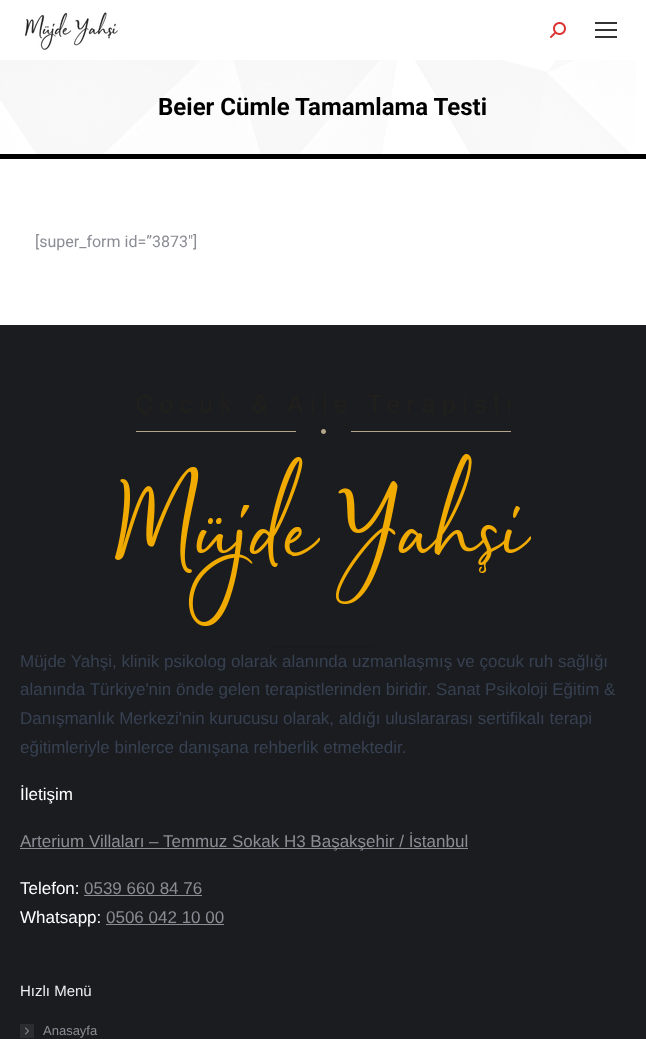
(async () => {
    const canvas = document.querySelector("canvas");
    canvas.width = 646;
    canvas.height = 1039;
    const context = canvas.getContext("2d");
    context.miterLimit = 4;
    context.fontKerning = "normal";
    function write(s, x, y, font, color) {
        context.font = font;
        context.fillStyle = color;
        context.fillText(s, x, y);
    }
    function block(x, y, w, h, color) {
        context.fillStyle = color;
        context.fillRect(x, y, w, h);
    }
    async function photo(src, x, y, w, h) {
        const img = new Image();
        img.src = src;
        await img.decode();
        context.drawImage(img, x, y, w, h);
    }

    block(0, 0, 646, 1039, "rgb(255, 255, 255)");
    await photo("media/1.png", 24, 12, 94, 38);
    await photo("media/2.png", 550, 22, 16, 16);
    block(595, 22, 22, 2, "rgb(51, 51, 51)");
    block(595, 29, 22, 2, "rgb(51, 51, 51)");
    block(595, 36, 22, 2, "rgb(51, 51, 51)");
    await photo("media/3.png", 0, 60, 636, 94);
    block(0, 154, 646, 5, "rgb(0, 0, 0)");
    write("Beier Cümle Tamamlama Testi", 158, 115, "bold 24px Roboto", "rgb(0, 0, 0)");
    write("[super_form id=”3873″]", 35, 247, "16px Roboto", "rgb(139, 141, 148)");
    block(0, 325, 646, 714, "rgb(26, 28, 32)");
    await photo("media/4.png", 115, 395, 416, 231);
    block(273, 646, 100, 2, "rgb(24, 26, 29)");
    write("Müjde Yahşi, klinik psikolog olarak alanında uzmanlaşmış ve çocuk ruh sağlığı", 20, 667, "17px Liberation Sans", "rgb(55, 65, 81)");
    write("alanında Türkiye'nin önde gelen terapistlerinden biridir. Sanat Psikoloji Eğitim &", 20, 695, "17px Liberation Sans", "rgb(55, 65, 81)");
    write("Danışmanlık Merkezi'nin kurucusu olarak, aldığı uluslararası sertifikalı terapi", 20, 724, "17px Liberation Sans", "rgb(55, 65, 81)");
    write("eğitimleriyle binlerce danışana rehberlik etmektedir.", 20, 753, "17px Liberation Sans", "rgb(55, 65, 81)");
    write("İletişim", 20, 800, "17px Liberation Sans", "rgb(255, 255, 255)");
    block(20, 848, 448, 1, "rgb(139, 141, 148)");
    write("Arterium Villaları – Temmuz Sokak H3 Başakşehir / İstanbul", 20, 847, "17px Liberation Sans", "rgb(139, 141, 148)");
    write("Telefon:", 20, 894, "17px Liberation Sans", "rgb(255, 255, 255)");
    write("0539 660 84 76", 84, 894, "17px Liberation Sans", "rgb(139, 141, 148)");
    block(84, 895, 118, 1, "rgb(139, 141, 148)");
    write("Whatsapp:", 20, 923, "17px Liberation Sans", "rgb(255, 255, 255)");
    write("0506 042 10 00", 106, 923, "17px Liberation Sans", "rgb(139, 141, 148)");
    block(106, 924, 118, 1, "rgb(139, 141, 148)");
    write("Hızlı Menü", 20, 996, "15px Liberation Sans", "rgb(238, 238, 238)");
    block(20, 1024, 14, 14, "rgb(43, 45, 49)");
    write("Anasayfa", 43, 1035, "13px Liberation Sans", "rgb(139, 141, 148)");
    await photo("media/5.png", 25, 1027, 4, 8);
})();
